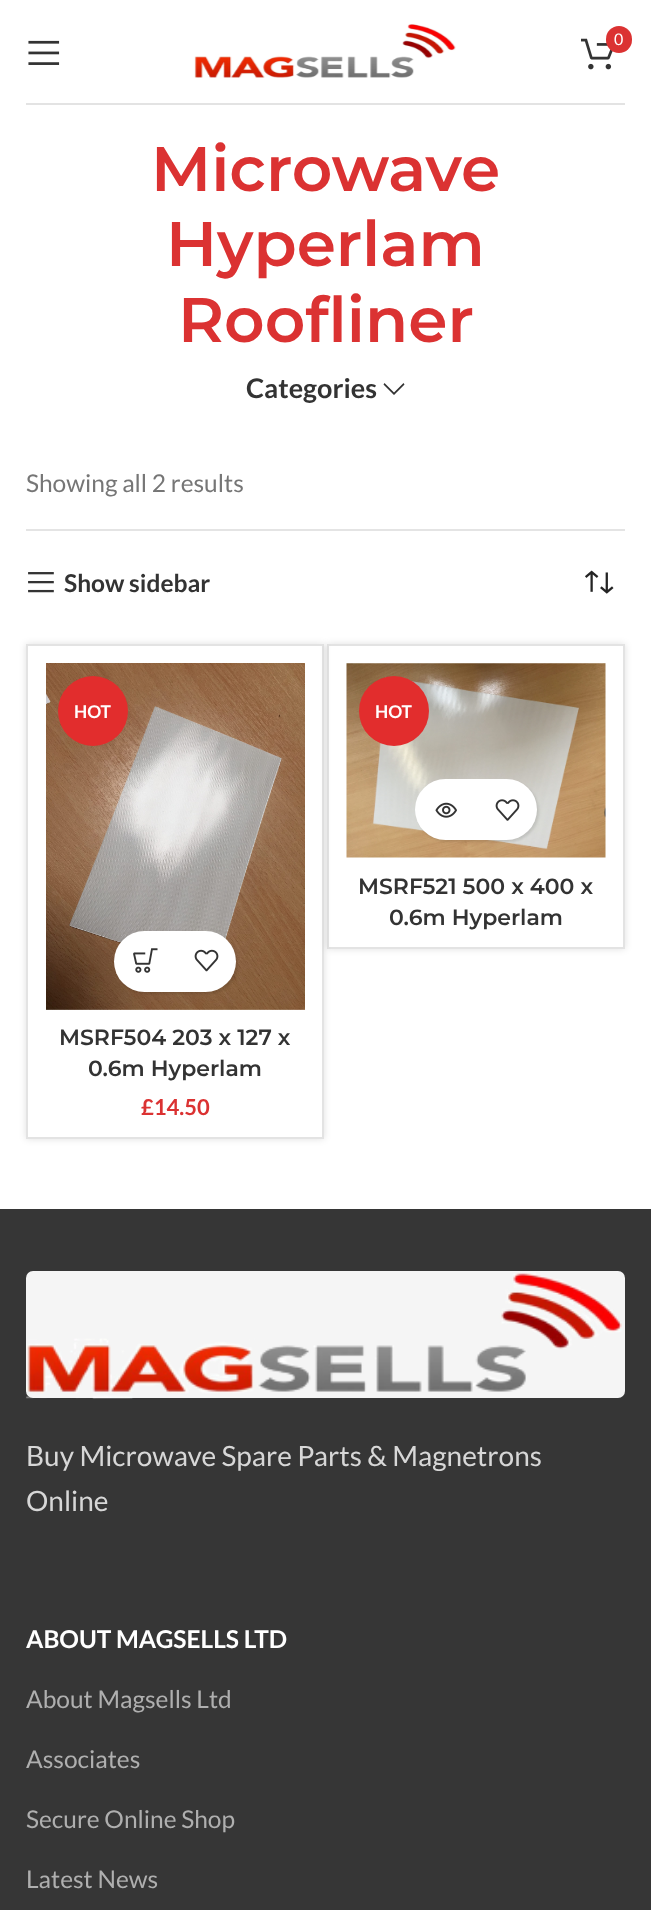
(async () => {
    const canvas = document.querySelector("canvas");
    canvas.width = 651;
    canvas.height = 1910;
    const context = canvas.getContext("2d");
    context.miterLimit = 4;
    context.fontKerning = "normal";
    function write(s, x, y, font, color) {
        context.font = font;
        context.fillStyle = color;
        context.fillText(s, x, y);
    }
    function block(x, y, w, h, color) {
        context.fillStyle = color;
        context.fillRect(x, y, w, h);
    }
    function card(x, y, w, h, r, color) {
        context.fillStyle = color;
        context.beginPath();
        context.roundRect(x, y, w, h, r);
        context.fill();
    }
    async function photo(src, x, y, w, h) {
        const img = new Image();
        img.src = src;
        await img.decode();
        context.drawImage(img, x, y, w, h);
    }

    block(0, 0, 651, 1910, "rgb(255, 255, 255)");
    block(26, 103, 599, 2, "rgb(227, 227, 227)");
    await photo("media/1.png", 28, 40, 32, 25);
    await photo("media/2.png", 194, 23, 262, 55);
    await photo("media/3.png", 581, 38, 32, 32);
    card(606, 26, 26, 27, 13, "rgb(219, 50, 50)");
    write("0", 614, 45, "16px Lato", "rgb(255, 255, 255)");
    write("Microwave", 151, 191, "600 63px Montserrat", "rgb(219, 50, 50)");
    write("Hyperlam", 166, 266, "600 63px Montserrat", "rgb(219, 50, 50)");
    write("Roofliner", 178, 342, "600 63px Montserrat", "rgb(219, 50, 50)");
    write("Categories", 246, 398, "bold 27px Lato", "rgb(51, 51, 51)");
    context.beginPath();
    context.moveTo(403.5, 383);
    context.lineTo(394, 392.5);
    context.lineTo(384.5, 383);
    context.lineTo(383.5, 384.5);
    context.lineTo(394, 395);
    context.lineTo(404.5, 384.5);
    context.closePath();
    context.fill();
    block(26, 529, 599, 2, "rgb(228, 228, 228)");
    write("Showing all 2 results", 26, 492, "24.5px Lato", "rgb(118, 118, 118)");
    await photo("media/4.png", 28, 572, 26, 21);
    write("Show sidebar", 64, 592, "bold 24.5px Lato", "rgb(51, 51, 51)");
    await photo("media/5.png", 585, 570, 29, 24);
    context.save();
    context.beginPath();
    context.moveTo(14, 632);
    context.lineTo(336, 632);
    context.lineTo(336, 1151);
    context.lineTo(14, 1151);
    context.closePath();
    context.moveTo(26, 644);
    context.lineTo(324, 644);
    context.lineTo(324, 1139);
    context.lineTo(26, 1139);
    context.closePath();
    context.clip("evenodd");
    context.fillStyle = "rgba(0, 0, 0, 0.12)";
    context.filter = "blur(3.5px)";
    context.beginPath();
    context.rect(26, 644, 298, 495);
    context.fill();
    context.filter = "none";
    context.restore();
    context.strokeStyle = "rgba(0, 0, 0, 0.11)";
    context.lineWidth = 2;
    context.strokeRect(27, 645, 296, 493);
    await photo("media/6.png", 46, 663, 259, 347);
    context.fillStyle = "rgb(226, 45, 45)";
    context.beginPath();
    context.arc(93, 711, 35, 0, Math.PI * 2);
    context.fill();
    write("HOT", 74, 718, "bold 17.5px Lato", "rgb(255, 255, 255)");
    context.fillStyle = "rgba(0, 0, 0, 0.1)";
    context.filter = "blur(1px)";
    context.beginPath();
    context.roundRect(116, 933, 122, 61, 30.5);
    context.fill();
    context.filter = "none";
    card(114, 931, 122, 61, 30.5, "rgb(255, 255, 255)");
    await photo("media/7.png", 133, 948, 25, 25);
    await photo("media/8.png", 194, 949, 25, 23);
    write("MSRF504 203 x 127 x", 59, 1045, "600 22px Montserrat", "rgb(51, 51, 51)");
    write("0.6m Hyperlam", 88, 1076, "600 22px Montserrat", "rgb(51, 51, 51)");
    write("£14.50", 141, 1115, "bold 22px Lato", "rgb(219, 50, 50)");
    context.save();
    context.beginPath();
    context.moveTo(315, 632);
    context.lineTo(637, 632);
    context.lineTo(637, 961);
    context.lineTo(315, 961);
    context.closePath();
    context.moveTo(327, 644);
    context.lineTo(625, 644);
    context.lineTo(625, 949);
    context.lineTo(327, 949);
    context.closePath();
    context.clip("evenodd");
    context.fillStyle = "rgba(0, 0, 0, 0.12)";
    context.filter = "blur(3.5px)";
    context.beginPath();
    context.rect(327, 644, 298, 305);
    context.fill();
    context.filter = "none";
    context.restore();
    context.strokeRect(328, 645, 296, 303);
    await photo("media/9.png", 346, 663, 260, 195);
    context.fillStyle = "rgb(226, 45, 45)";
    context.beginPath();
    context.arc(394, 711, 35, 0, Math.PI * 2);
    context.fill();
    write("HOT", 375, 718, "bold 17.5px Lato", "rgb(255, 255, 255)");
    context.fillStyle = "rgba(0, 0, 0, 0.1)";
    context.filter = "blur(1px)";
    context.beginPath();
    context.roundRect(417, 781, 122, 61, 30.5);
    context.fill();
    context.filter = "none";
    card(415, 779, 122, 61, 30.5, "rgb(255, 255, 255)");
    await photo("media/10.png", 435, 802, 22, 16);
    await photo("media/11.png", 495, 799, 25, 22);
    write("MSRF521 500 x 400 x", 358, 894, "600 22px Montserrat", "rgb(51, 51, 51)");
    write("0.6m Hyperlam", 389, 925, "600 22px Montserrat", "rgb(51, 51, 51)");
    block(0, 1209, 651, 701, "rgb(54, 54, 54)");
    card(26, 1271, 599, 127, 7, "rgb(245, 245, 245)");
    await photo("media/12.png", 26, 1272, 596, 127);
    write("Buy Microwave Spare Parts & Magnetrons", 26, 1466, "28px Lato", "rgb(215, 215, 215)");
    write("Online", 26, 1511, "28px Lato", "rgb(215, 215, 215)");
    write("ABOUT MAGSELLS LTD", 26, 1648, "bold 24.5px Lato", "rgb(255, 255, 255)");
    write("About Magsells Ltd", 26, 1708, "24.5px Lato", "rgb(175, 175, 175)");
    write("Associates", 26, 1768, "24.5px Lato", "rgb(175, 175, 175)");
    write("Secure Online Shop", 26, 1828, "24.5px Lato", "rgb(175, 175, 175)");
    write("Latest News", 26, 1888, "24.5px Lato", "rgb(175, 175, 175)");
})();
